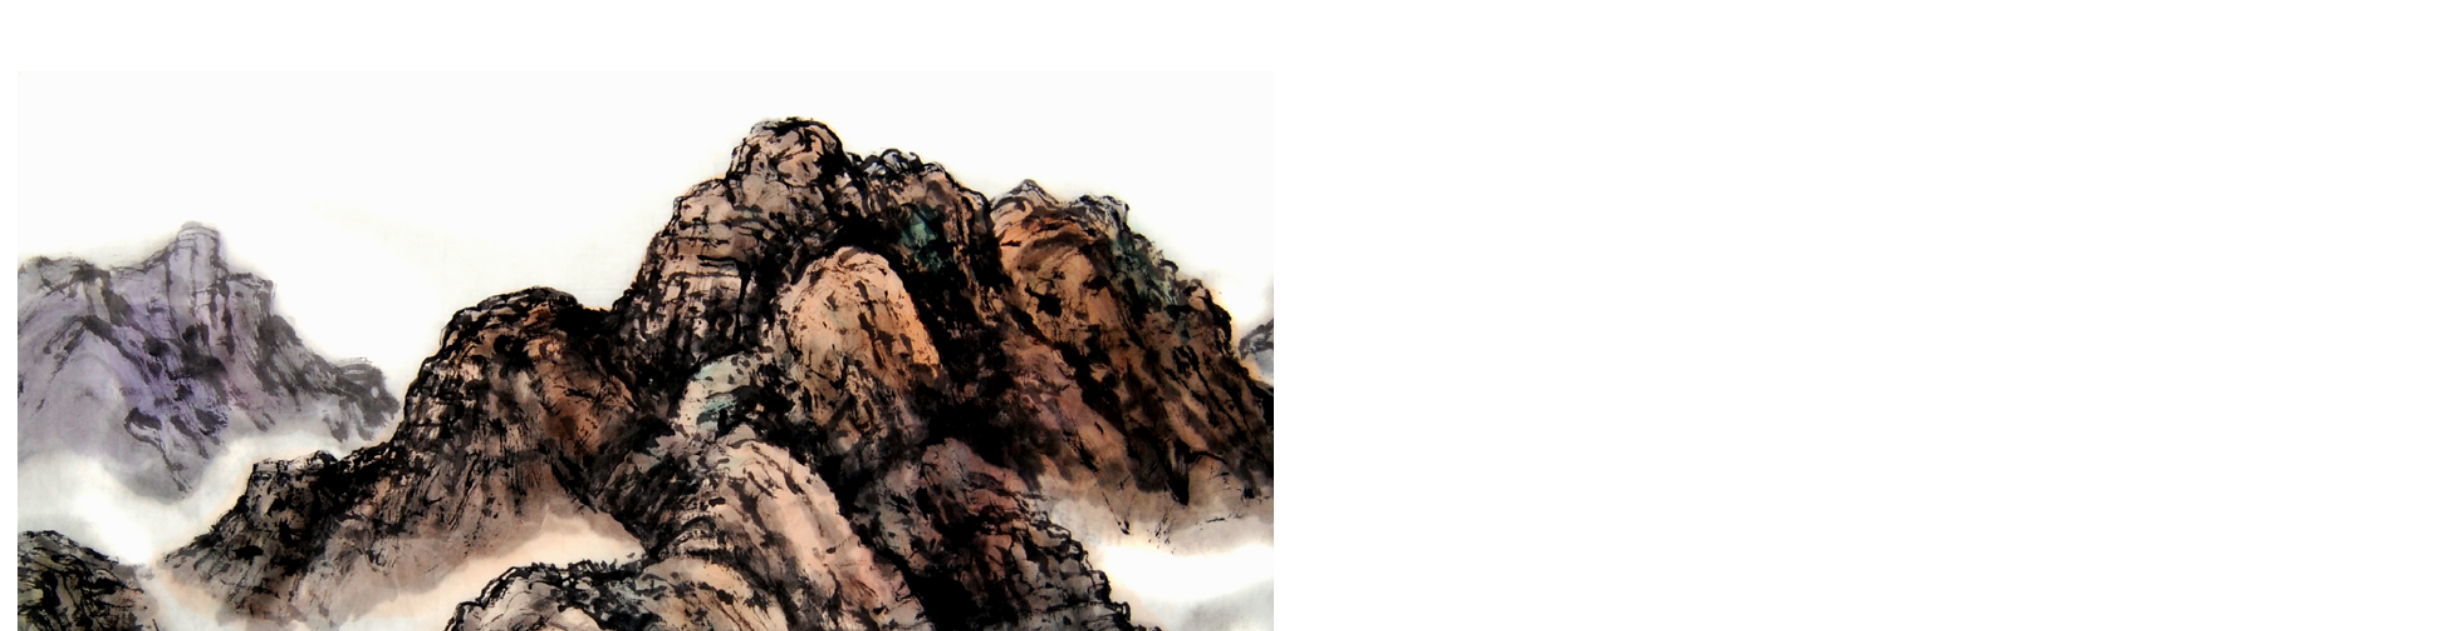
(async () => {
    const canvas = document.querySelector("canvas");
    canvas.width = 2458;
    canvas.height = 631;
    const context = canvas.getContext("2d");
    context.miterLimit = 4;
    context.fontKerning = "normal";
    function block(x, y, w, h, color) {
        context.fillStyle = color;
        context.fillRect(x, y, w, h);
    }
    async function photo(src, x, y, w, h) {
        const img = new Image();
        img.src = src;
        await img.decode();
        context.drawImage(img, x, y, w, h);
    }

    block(0, 0, 2458, 631, "rgb(255, 255, 255)");
    await photo("media/1.png", 17, 71, 1257, 560);
})();
